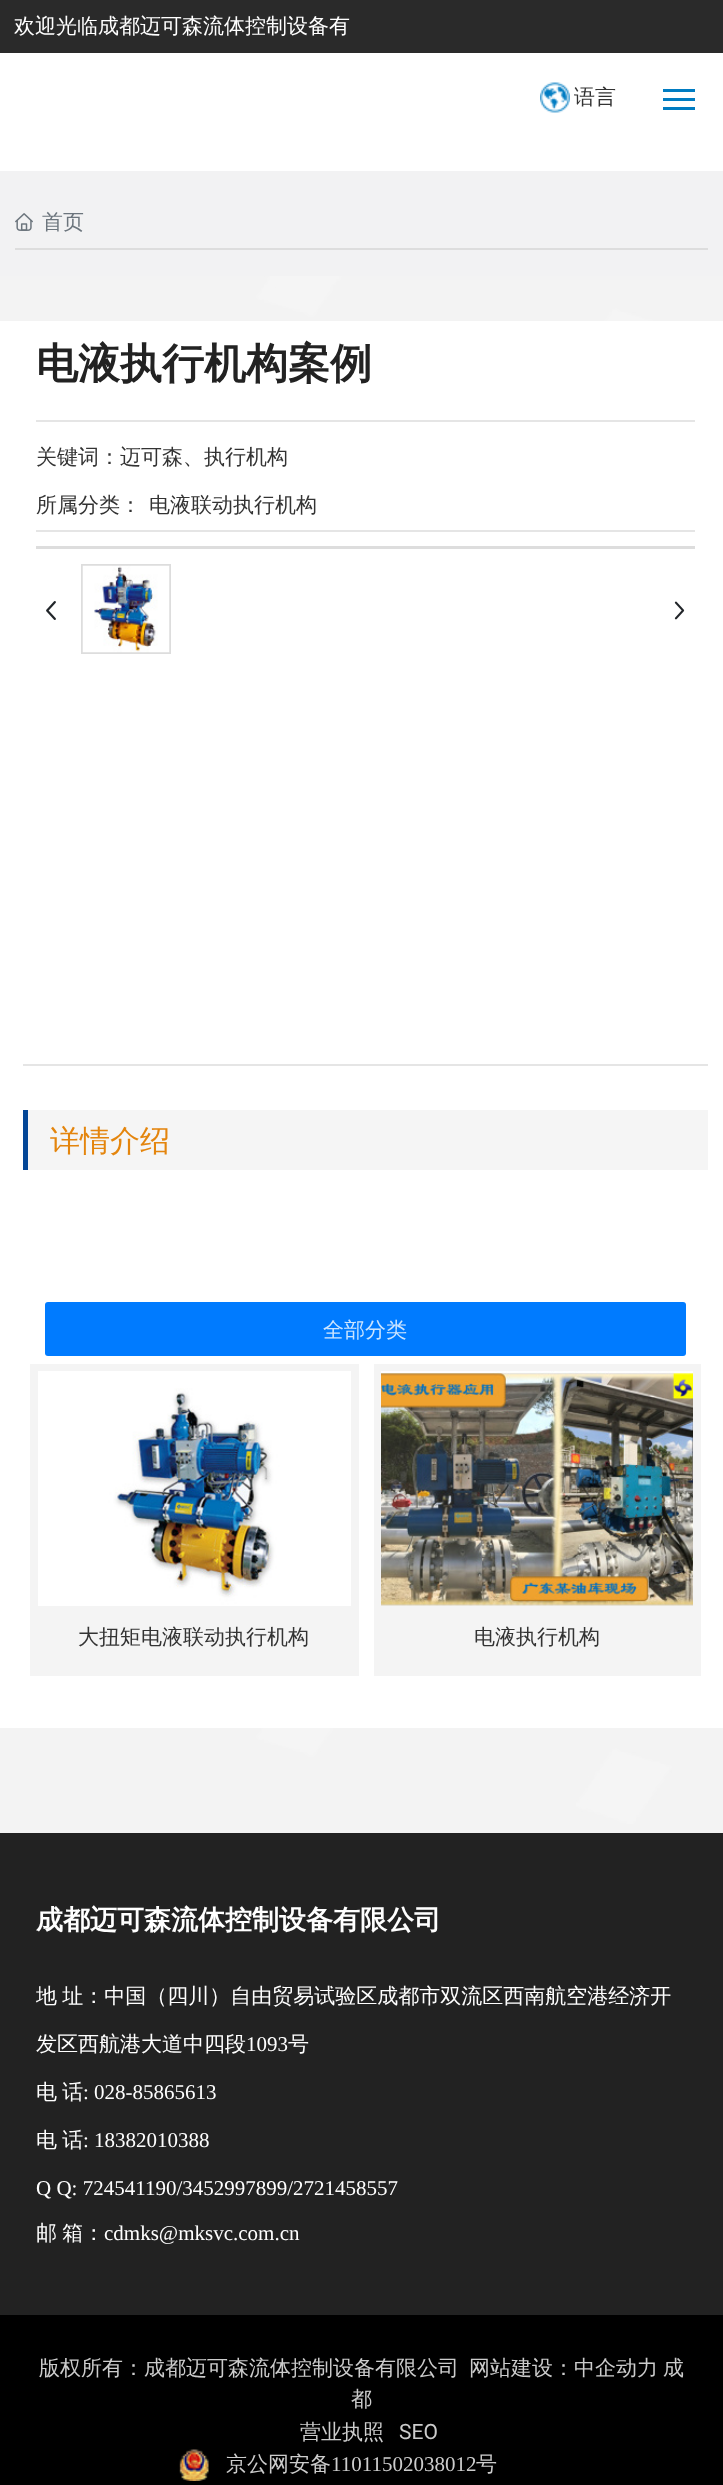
(async () => {
    const canvas = document.querySelector("canvas");
    canvas.width = 723;
    canvas.height = 2485;
    const context = canvas.getContext("2d");
    context.miterLimit = 4;
    context.fontKerning = "normal";
    function write(s, x, y, font, color) {
        context.font = font;
        context.fillStyle = color;
        context.fillText(s, x, y);
    }
    function block(x, y, w, h, color) {
        context.fillStyle = color;
        context.fillRect(x, y, w, h);
    }
    function card(x, y, w, h, r, color) {
        context.fillStyle = color;
        context.beginPath();
        context.roundRect(x, y, w, h, r);
        context.fill();
    }
    async function photo(src, x, y, w, h) {
        const img = new Image();
        img.src = src;
        await img.decode();
        context.drawImage(img, x, y, w, h);
    }

    block(0, 0, 723, 2485, "rgb(255, 255, 255)");
    block(0, 0, 723, 53, "rgb(42, 42, 42)");
    write("欢迎光临成都迈可森流体控制设备有", 14, 33, "500 21px WenQuanYi Zen Hei", "rgb(255, 255, 255)");
    await photo("media/1.png", 540, 82, 30, 31);
    write("语言", 574, 104, "500 21px WenQuanYi Zen Hei", "rgb(51, 51, 51)");
    block(663, 89, 32, 3, "rgb(0, 124, 194)");
    block(663, 98, 32, 3, "rgb(0, 124, 194)");
    block(663, 107, 32, 3, "rgb(0, 124, 194)");
    block(0, 171, 723, 105, "rgb(242, 242, 243)");
    block(15, 248, 693, 2, "rgb(221, 221, 221)");
    await photo("media/2.png", 15, 213, 18, 18);
    write("首页", 42, 229, "500 21px WenQuanYi Zen Hei", "rgb(108, 117, 125)");
    await photo("media/3.png", 0, 276, 723, 1557);
    block(0, 321, 723, 1407, "rgb(255, 255, 255)");
    write("电液执行机构案例", 36, 378, "bold 42px WenQuanYi Zen Hei", "rgb(34, 34, 34)");
    block(36, 420, 659, 2, "rgb(229, 229, 229)");
    write("关键词：迈可森、执行机构", 36, 464, "500 21px WenQuanYi Zen Hei", "rgb(51, 51, 51)");
    write("所属分类：", 36, 512, "500 21px WenQuanYi Zen Hei", "rgb(51, 51, 51)");
    write("电液联动执行机构", 149, 512, "500 21px WenQuanYi Zen Hei", "rgb(51, 51, 51)");
    block(36, 530, 659, 2, "rgb(229, 229, 229)");
    block(36, 546, 659, 3, "rgb(221, 221, 221)");
    context.strokeStyle = "rgb(221, 221, 221)";
    context.lineWidth = 2;
    context.strokeRect(82, 565, 88, 88);
    await photo("media/4.png", 82, 565, 88, 88);
    await photo("media/5.png", 46, 601, 10, 19);
    await photo("media/6.png", 674, 601, 11, 19);
    block(23, 1064, 685, 2, "rgb(229, 229, 229)");
    block(28, 1110, 680, 60, "rgb(245, 245, 245)");
    block(23, 1110, 5, 60, "rgb(3, 70, 151)");
    write("详情介绍", 50, 1151, "500 30px WenQuanYi Zen Hei", "rgb(228, 133, 13)");
    card(45, 1302, 641, 54, 3, "rgb(0, 123, 255)");
    write("全部分类", 323, 1337, "500 21px WenQuanYi Zen Hei", "rgb(204, 229, 255)");
    block(30, 1364, 329, 312, "rgb(244, 244, 244)");
    await photo("media/7.png", 38, 1371, 313, 235);
    write("大扭矩电液联动执行机构", 78, 1644, "500 21px WenQuanYi Zen Hei", "rgb(51, 51, 51)");
    block(374, 1364, 327, 312, "rgb(244, 244, 244)");
    await photo("media/8.png", 381, 1371, 312, 235);
    write("电液执行机构", 474, 1644, "500 21px WenQuanYi Zen Hei", "rgb(51, 51, 51)");
    block(0, 1833, 723, 482, "rgb(34, 34, 34)");
    write("成都迈可森流体控制设备有限公司", 36, 1929, "bold 27px WenQuanYi Zen Hei", "rgb(255, 255, 255)");
    context.wordSpacing = "-1px";
    write("地 址：中国（四川）自由贸易试验区成都市双流区西南航空港经济开", 36, 2003, "500 21px WenQuanYi Zen Hei", "rgb(255, 255, 255)");
    context.wordSpacing = "0px";
    write("发区西航港大道中四段", 36, 2051, "500 21px WenQuanYi Zen Hei", "rgb(255, 255, 255)");
    write("1093", 246, 2051, "21px Liberation Serif", "rgb(255, 255, 255)");
    write("号", 288, 2051, "500 21px WenQuanYi Zen Hei", "rgb(255, 255, 255)");
    context.wordSpacing = "-1px";
    write("电 话", 36, 2099, "500 21px WenQuanYi Zen Hei", "rgb(255, 255, 255)");
    context.wordSpacing = "0px";
    write(": 028-85865613", 83, 2099, "21px Liberation Serif", "rgb(255, 255, 255)");
    context.wordSpacing = "-1px";
    write("电 话", 36, 2147, "500 21px WenQuanYi Zen Hei", "rgb(255, 255, 255)");
    context.wordSpacing = "0px";
    write(": 18382010388", 83, 2147, "21px Liberation Serif", "rgb(255, 255, 255)");
    write("Q Q: 724541190/3452997899/2721458557", 36, 2195, "21px Liberation Serif", "rgb(255, 255, 255)");
    context.wordSpacing = "-1px";
    write("邮 箱：", 36, 2240, "500 21px WenQuanYi Zen Hei", "rgb(255, 255, 255)");
    context.wordSpacing = "0px";
    write("cdmks@mksvc.com.cn", 104, 2240, "21px Liberation Serif", "rgb(255, 255, 255)");
    block(0, 2315, 723, 170, "rgb(0, 0, 0)");
    write("版权所有：成都迈可森流体控制设备有限公司", 39, 2375, "500 21px WenQuanYi Zen Hei", "rgb(204, 204, 204)");
    write("网站建设：中企动力", 469, 2375, "500 21px WenQuanYi Zen Hei", "rgb(204, 204, 204)");
    write("成", 663, 2375, "500 21px WenQuanYi Zen Hei", "rgb(204, 204, 204)");
    write("都", 351, 2406, "500 21px WenQuanYi Zen Hei", "rgb(204, 204, 204)");
    write("营业执照", 300, 2439, "500 21px WenQuanYi Zen Hei", "rgb(204, 204, 204)");
    write("SEO", 399, 2439, "21px Roboto", "rgb(204, 204, 204)");
    await photo("media/9.png", 179, 2449, 30, 32);
    write("京公网安备", 226, 2471, "500 21px WenQuanYi Zen Hei", "rgb(204, 204, 204)");
    write("11011502038012", 331, 2471, "21px Liberation Serif", "rgb(204, 204, 204)");
    write("号", 476, 2471, "500 21px WenQuanYi Zen Hei", "rgb(204, 204, 204)");
})();
